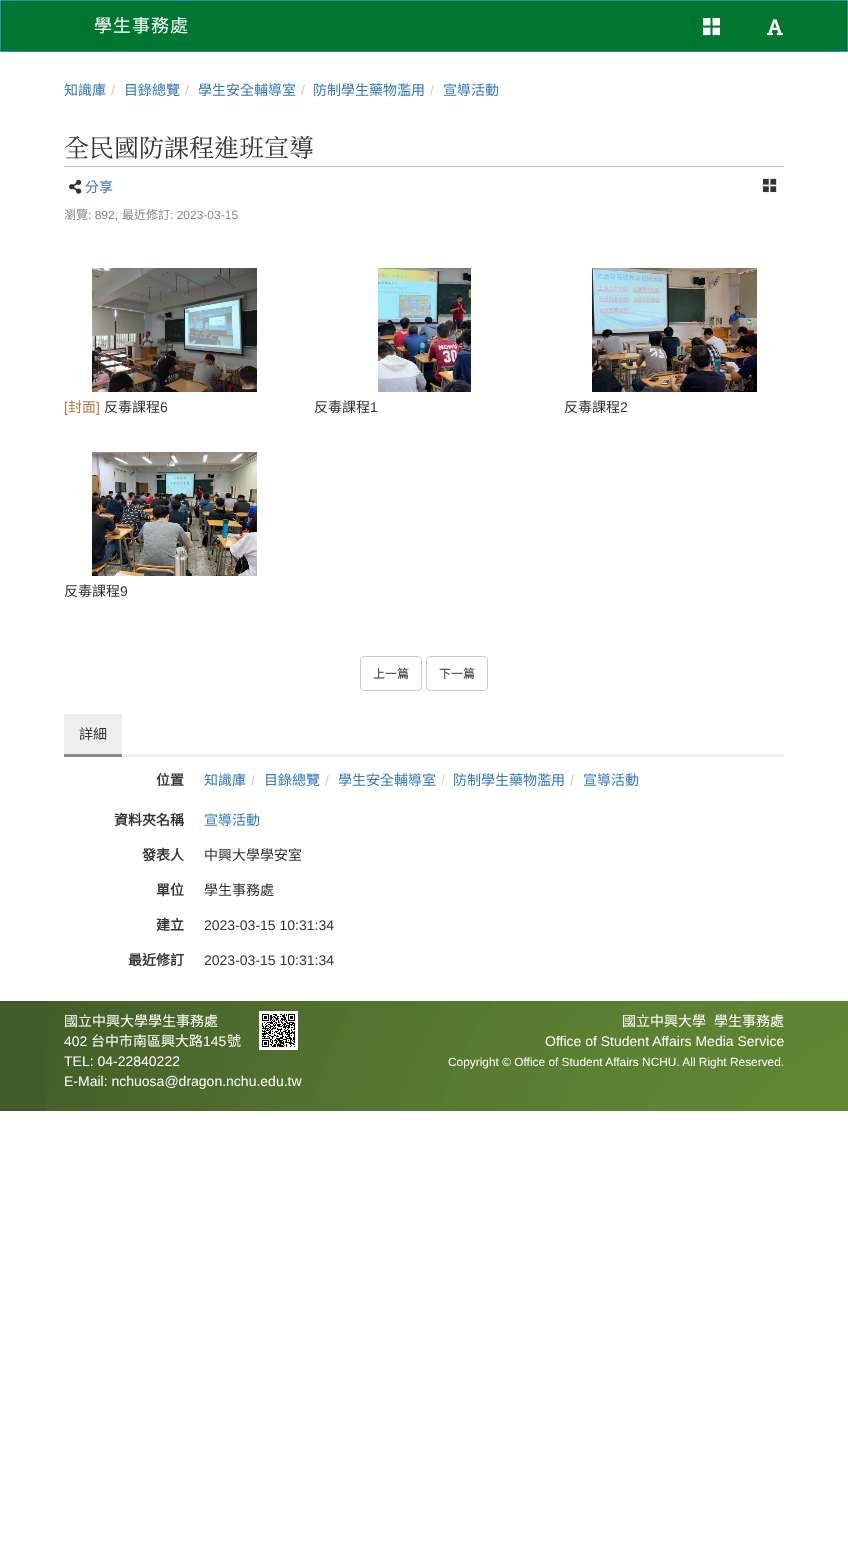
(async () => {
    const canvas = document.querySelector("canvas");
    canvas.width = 848;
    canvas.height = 1549;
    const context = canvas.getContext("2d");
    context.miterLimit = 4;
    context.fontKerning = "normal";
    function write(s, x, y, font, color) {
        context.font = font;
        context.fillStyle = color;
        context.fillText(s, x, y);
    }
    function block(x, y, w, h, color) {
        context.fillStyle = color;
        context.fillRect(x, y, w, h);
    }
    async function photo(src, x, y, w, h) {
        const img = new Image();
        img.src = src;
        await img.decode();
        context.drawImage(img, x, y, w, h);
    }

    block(0, 0, 848, 1549, "rgb(255, 255, 255)");
    context.fillStyle = "rgb(0, 119, 49)";
    context.beginPath();
    context.rect(0.5, 0.5, 847, 51);
    context.fill();
    context.strokeStyle = "rgb(35, 146, 174)";
    context.stroke();
    context.letterSpacing = "1px";
    write("學生事務處", 94, 32, "18px Noto Sans CJK TC", "rgb(255, 255, 255)");
    await photo("media/1.png", 703, 18, 17, 18);
    await photo("media/2.png", 767, 19, 16, 17);
    context.letterSpacing = "0px";
    write("知識庫", 64, 95, "14px Noto Sans CJK TC", "rgb(51, 122, 183)");
    write("/", 111, 95, "14px Liberation Sans", "rgb(204, 204, 204)");
    write("目錄總覽", 124, 95, "14px Noto Sans CJK TC", "rgb(51, 122, 183)");
    write("/", 185, 95, "14px Liberation Sans", "rgb(204, 204, 204)");
    write("學生安全輔導室", 198, 95, "14px Noto Sans CJK TC", "rgb(51, 122, 183)");
    write("/", 301, 95, "14px Liberation Sans", "rgb(204, 204, 204)");
    write("防制學生藥物濫用", 313, 95, "14px Noto Sans CJK TC", "rgb(51, 122, 183)");
    write("/", 430, 95, "14px Liberation Sans", "rgb(204, 204, 204)");
    write("宣導活動", 443, 95, "14px Noto Sans CJK TC", "rgb(51, 122, 183)");
    block(64, 166, 720, 1, "rgb(187, 187, 187)");
    write("全民國防課程進班宣導", 64, 157, "200 25px Noto Serif TC", "rgb(51, 51, 51)");
    await photo("media/3.png", 69, 179, 13, 15);
    write("分享", 85, 192, "14px Noto Sans CJK TC", "rgb(51, 122, 183)");
    await photo("media/4.png", 763, 178, 14, 15);
    write("瀏覽", 64, 219, "12px Noto Sans CJK TC", "rgb(136, 136, 136)");
    write(": 892,", 88, 219, "12px Liberation Sans", "rgb(136, 136, 136)");
    write("最近修訂", 122, 219, "12px Noto Sans CJK TC", "rgb(136, 136, 136)");
    write(": 2023-03-15", 170, 219, "12px Liberation Sans", "rgb(136, 136, 136)");
    await photo("media/5.png", 92, 268, 165, 124);
    write("[", 64, 412, "14px Liberation Sans", "rgb(185, 121, 74)");
    write("封面", 68, 412, "14px Noto Sans CJK TC", "rgb(185, 121, 74)");
    write("]", 96, 412, "14px Liberation Sans", "rgb(185, 121, 74)");
    write("反毒課程", 104, 412, "14px Noto Sans CJK TC", "rgb(51, 51, 51)");
    write("6", 160, 412, "14px Liberation Sans", "rgb(51, 51, 51)");
    await photo("media/6.png", 378, 268, 93, 124);
    write("反毒課程", 314, 412, "14px Noto Sans CJK TC", "rgb(51, 51, 51)");
    write("1", 370, 412, "14px Liberation Sans", "rgb(51, 51, 51)");
    await photo("media/7.png", 592, 268, 165, 124);
    write("反毒課程", 564, 412, "14px Noto Sans CJK TC", "rgb(51, 51, 51)");
    write("2", 620, 412, "14px Liberation Sans", "rgb(51, 51, 51)");
    await photo("media/8.png", 92, 452, 165, 124);
    write("反毒課程", 64, 596, "14px Noto Sans CJK TC", "rgb(51, 51, 51)");
    write("9", 120, 596, "14px Liberation Sans", "rgb(51, 51, 51)");
    context.beginPath();
    context.roundRect(360.5, 656.5, 61, 34, 3.5);
    context.strokeStyle = "rgb(204, 204, 204)";
    context.stroke();
    write("上一篇", 373, 678, "12px Noto Sans CJK TC", "rgb(51, 51, 51)");
    context.beginPath();
    context.roundRect(426.5, 656.5, 61, 34, 3.5);
    context.stroke();
    write("下一篇", 439, 678, "12px Noto Sans CJK TC", "rgb(51, 51, 51)");
    block(64, 714, 58, 40, "rgb(238, 238, 238)");
    block(64, 754, 58, 3, "rgb(136, 136, 136)");
    write("詳細", 79, 739, "14px Noto Sans CJK TC", "rgb(51, 51, 51)");
    block(122, 754, 662, 3, "rgb(238, 238, 238)");
    write("位置", 156, 785, "bold 14px Noto Sans CJK TC", "rgb(51, 51, 51)");
    write("知識庫", 204, 785, "14px Noto Sans CJK TC", "rgb(51, 122, 183)");
    write("/", 251, 785, "14px Liberation Sans", "rgb(204, 204, 204)");
    write("目錄總覽", 264, 785, "14px Noto Sans CJK TC", "rgb(51, 122, 183)");
    write("/", 325, 785, "14px Liberation Sans", "rgb(204, 204, 204)");
    write("學生安全輔導室", 338, 785, "14px Noto Sans CJK TC", "rgb(51, 122, 183)");
    write("/", 441, 785, "14px Liberation Sans", "rgb(204, 204, 204)");
    write("防制學生藥物濫用", 453, 785, "14px Noto Sans CJK TC", "rgb(51, 122, 183)");
    write("/", 570, 785, "14px Liberation Sans", "rgb(204, 204, 204)");
    write("宣導活動", 583, 785, "14px Noto Sans CJK TC", "rgb(51, 122, 183)");
    write("資料夾名稱", 114, 825, "bold 14px Noto Sans CJK TC", "rgb(51, 51, 51)");
    write("宣導活動", 204, 825, "14px Noto Sans CJK TC", "rgb(51, 122, 183)");
    write("發表人", 142, 860, "bold 14px Noto Sans CJK TC", "rgb(51, 51, 51)");
    write("中興大學學安室", 204, 860, "14px Noto Sans CJK TC", "rgb(51, 51, 51)");
    write("單位", 156, 895, "bold 14px Noto Sans CJK TC", "rgb(51, 51, 51)");
    write("學生事務處", 204, 895, "14px Noto Sans CJK TC", "rgb(51, 51, 51)");
    write("建立", 156, 930, "bold 14px Noto Sans CJK TC", "rgb(51, 51, 51)");
    write("2023-03-15 10:31:34", 204, 930, "14px Liberation Sans", "rgb(51, 51, 51)");
    write("最近修訂", 128, 965, "bold 14px Noto Sans CJK TC", "rgb(51, 51, 51)");
    write("2023-03-15 10:31:34", 204, 965, "14px Liberation Sans", "rgb(51, 51, 51)");
    block(0, 1001, 46, 110, "rgb(68, 91, 43)");
    await photo("media/9.png", 46, 1001, 802, 110);
    write("國立中興大學學生事務處", 64, 1026, "14px Noto Sans CJK TC", "rgb(255, 255, 255)");
    write("402", 64, 1046, "14px Liberation Sans", "rgb(255, 255, 255)");
    write("台中市南區興大路", 91, 1046, "14px Noto Sans CJK TC", "rgb(255, 255, 255)");
    write("145", 203, 1046, "14px Liberation Sans", "rgb(255, 255, 255)");
    write("號", 227, 1046, "14px Noto Sans CJK TC", "rgb(255, 255, 255)");
    await photo("media/10.png", 259, 1011, 39, 39);
    write("TEL: 04-22840222", 64, 1066, "14px Liberation Sans", "rgb(255, 255, 255)");
    write("E-Mail: nchuosa@dragon.nchu.edu.tw", 64, 1086, "14px Liberation Sans", "rgb(255, 255, 255)");
    write("國立中興大學", 622, 1026, "14px Noto Sans CJK TC", "rgb(255, 255, 255)");
    write("學生事務處", 714, 1026, "14px Noto Sans CJK TC", "rgb(255, 255, 255)");
    write("Office of Student Affairs Media Service", 545, 1046, "14px Liberation Sans", "rgb(255, 255, 255)");
    write("Copyright © Office of Student Affairs NCHU. All Right Reserved.", 448, 1066, "11.9px Liberation Sans", "rgb(255, 255, 255)");
})();
